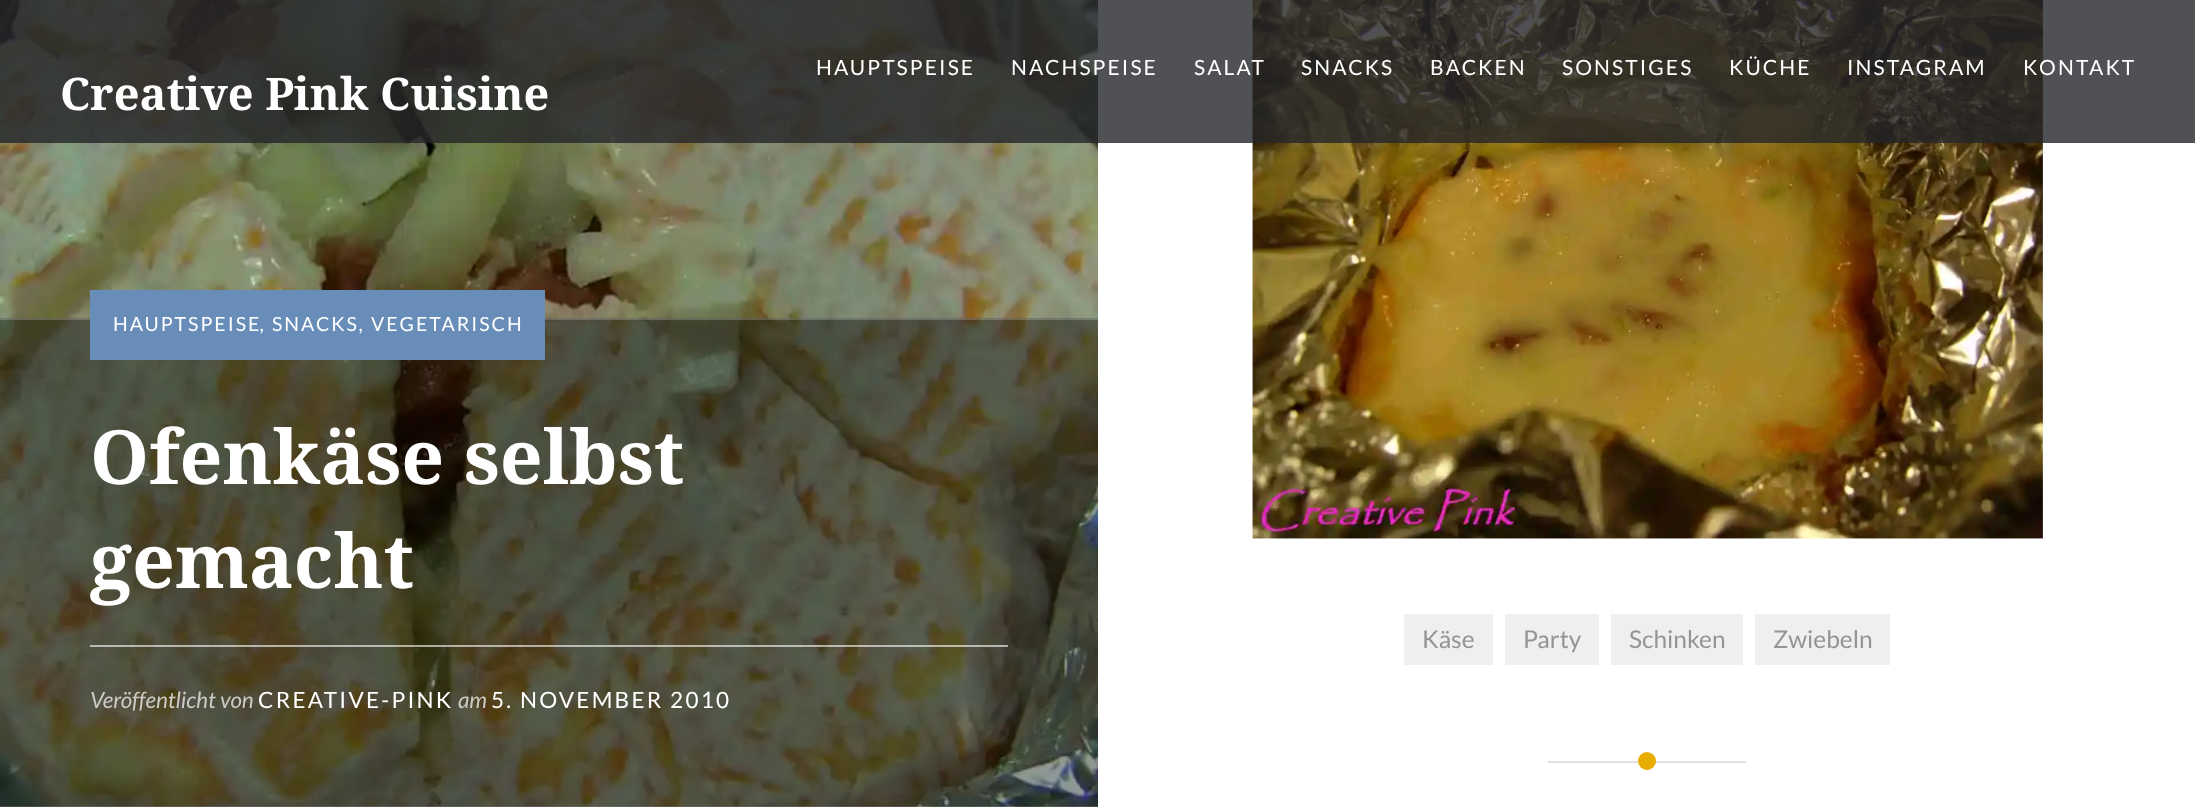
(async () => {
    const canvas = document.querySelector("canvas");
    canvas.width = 2195;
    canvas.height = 807;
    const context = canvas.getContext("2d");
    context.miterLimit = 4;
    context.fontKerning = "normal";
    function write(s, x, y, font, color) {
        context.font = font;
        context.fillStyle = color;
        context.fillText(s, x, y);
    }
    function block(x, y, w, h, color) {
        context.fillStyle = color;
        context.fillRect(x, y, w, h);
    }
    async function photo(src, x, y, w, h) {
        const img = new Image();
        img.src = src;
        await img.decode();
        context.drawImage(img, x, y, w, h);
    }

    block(0, 0, 2195, 807, "rgb(255, 255, 255)");
    await photo("media/1.png", 0, 0, 1098, 807);
    await photo("media/2.png", 1252, 0, 791, 539);
    block(0, 0, 2195, 143, "rgba(36, 38, 41, 0.8)");
    context.letterSpacing = "2.1px";
    write("HAUPTSPEISE", 816, 75, "21px Lato", "rgb(255, 255, 255)");
    write("NACHSPEISE", 1011, 75, "21px Lato", "rgb(255, 255, 255)");
    write("SALAT", 1194, 75, "21px Lato", "rgb(255, 255, 255)");
    write("SNACKS", 1301, 75, "21px Lato", "rgb(255, 255, 255)");
    write("BACKEN", 1430, 75, "21px Lato", "rgb(255, 255, 255)");
    write("SONSTIGES", 1562, 75, "21px Lato", "rgb(255, 255, 255)");
    write("KÜCHE", 1729, 75, "21px Lato", "rgb(255, 255, 255)");
    write("INSTAGRAM", 1847, 75, "21px Lato", "rgb(255, 255, 255)");
    write("KONTAKT", 2023, 75, "21px Lato", "rgb(255, 255, 255)");
    context.letterSpacing = "0px";
    write("Creative Pink Cuisine", 60, 110, "bold 45px Noto Serif", "rgb(255, 255, 255)");
    block(0, 318, 1098, 489, "rgba(0, 0, 0, 0.4)");
    block(0, 318, 1098, 2, "rgba(255, 255, 255, 0.2)");
    block(90, 290, 455, 70, "rgb(103, 141, 184)");
    context.letterSpacing = "2px";
    write("HAUPTSPEISE", 113, 331, "19.5px Lato", "rgb(255, 255, 255)");
    write(",", 260, 331, "italic 19.5px Lato", "rgb(255, 255, 255)");
    write("SNACKS", 272, 331, "19.5px Lato", "rgb(255, 255, 255)");
    write(",", 359, 331, "italic 19.5px Lato", "rgb(255, 255, 255)");
    write("VEGETARISCH", 371, 331, "19.5px Lato", "rgb(255, 255, 255)");
    context.letterSpacing = "0px";
    write("Ofenkäse selbst", 90, 484, "bold 75px Noto Serif", "rgb(255, 255, 255)");
    write("gemacht", 90, 588, "bold 75px Noto Serif", "rgb(255, 255, 255)");
    block(90, 645, 918, 2, "rgba(255, 255, 255, 0.6)");
    write("Veröffentlicht von", 90, 708, "italic 22.5px Lato", "rgb(203, 202, 196)");
    context.letterSpacing = "2.25px";
    write("CREATIVE-PINK", 258, 708, "22.5px Lato", "rgb(255, 255, 255)");
    context.letterSpacing = "0px";
    write("am", 458, 708, "italic 22.5px Lato", "rgb(203, 202, 196)");
    context.letterSpacing = "2.25px";
    write("5. NOVEMBER 2010", 491, 708, "22.5px Lato", "rgb(255, 255, 255)");
    block(1404, 614, 89, 51, "rgb(239, 239, 239)");
    context.letterSpacing = "0px";
    write("Käse", 1422, 648, "24.5px Lato", "rgb(148, 148, 148)");
    block(1505, 614, 94, 51, "rgb(239, 239, 239)");
    write("Party", 1523, 648, "24.5px Lato", "rgb(148, 148, 148)");
    block(1611, 614, 132, 51, "rgb(239, 239, 239)");
    write("Schinken", 1629, 648, "24.5px Lato", "rgb(148, 148, 148)");
    block(1755, 614, 135, 51, "rgb(239, 239, 239)");
    write("Zwiebeln", 1773, 648, "24.5px Lato", "rgb(148, 148, 148)");
    block(1548, 761, 198, 2, "rgb(224, 224, 224)");
    context.fillStyle = "rgb(231, 174, 1)";
    context.beginPath();
    context.arc(1647, 761, 9, 0, Math.PI * 2);
    context.fill();
})();
